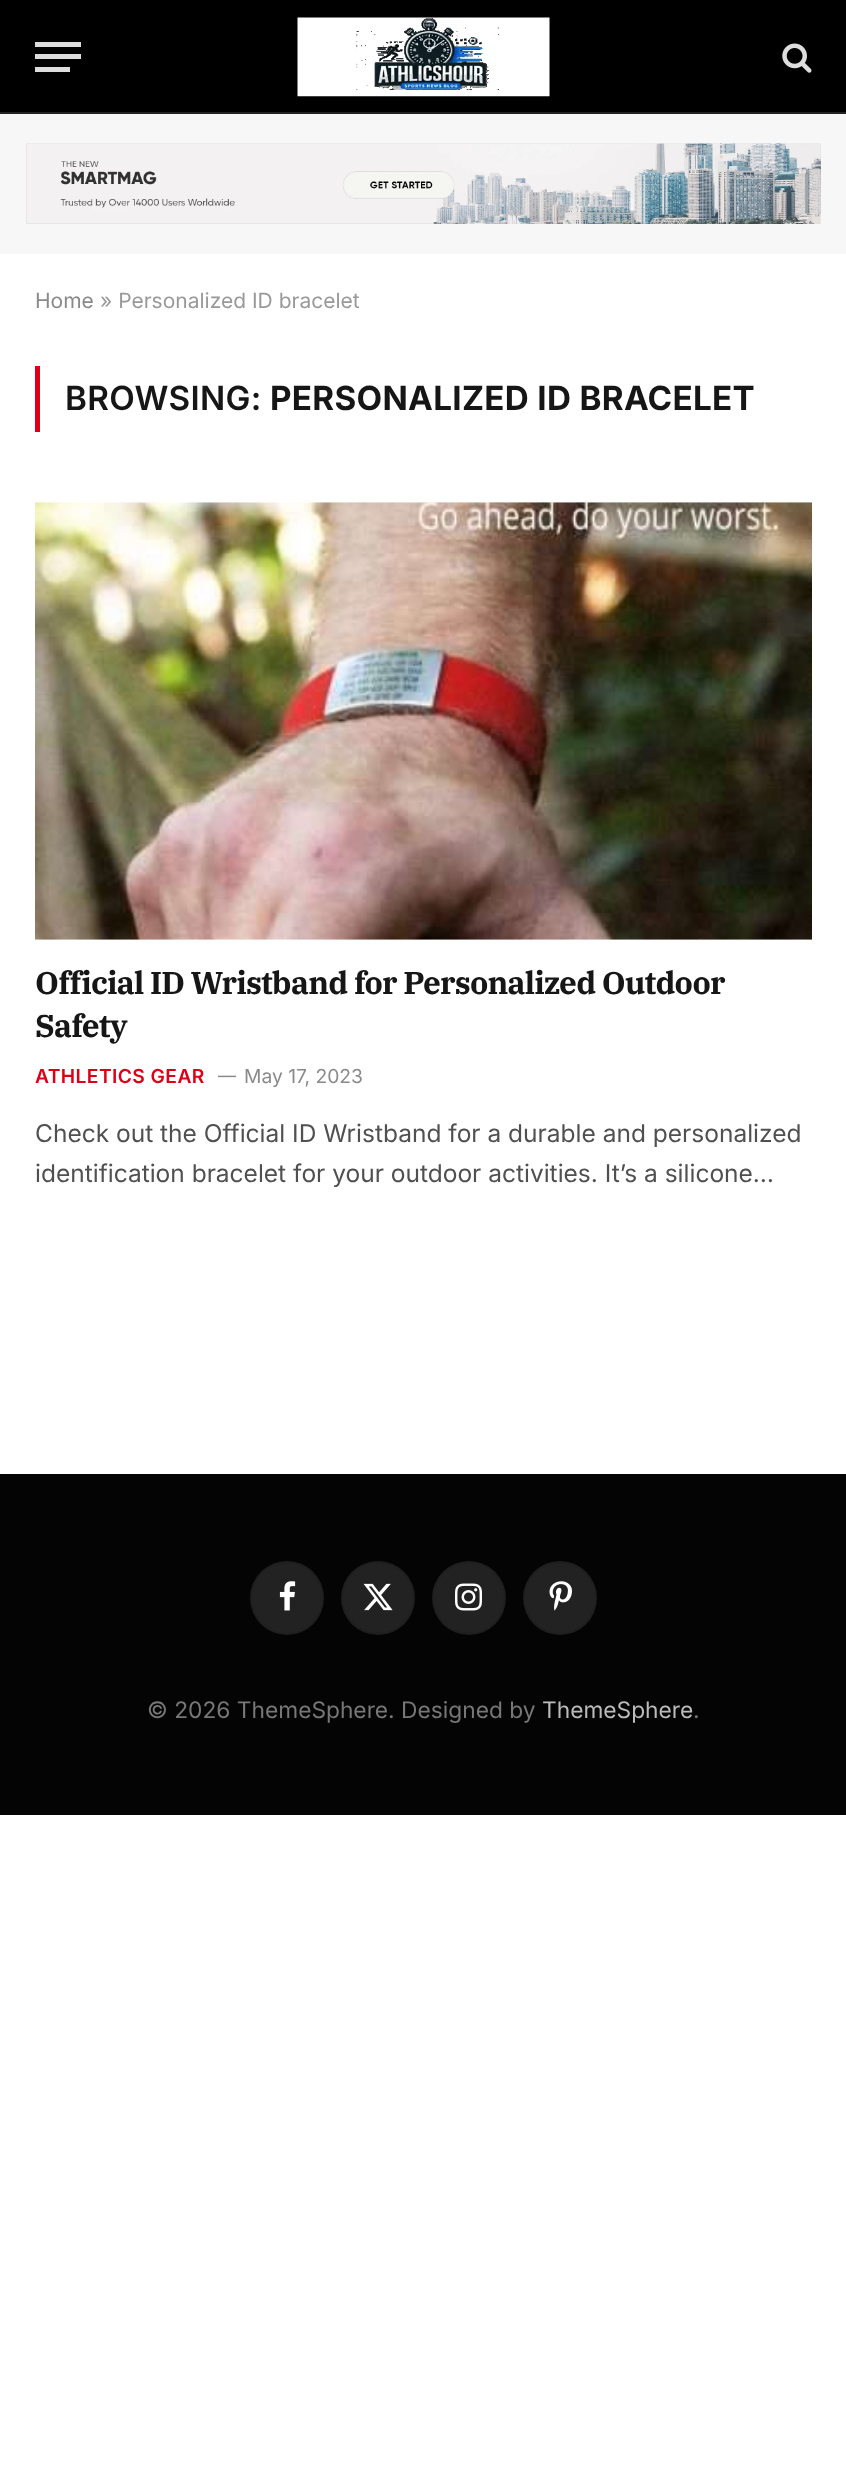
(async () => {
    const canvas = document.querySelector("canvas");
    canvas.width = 846;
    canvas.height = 2491;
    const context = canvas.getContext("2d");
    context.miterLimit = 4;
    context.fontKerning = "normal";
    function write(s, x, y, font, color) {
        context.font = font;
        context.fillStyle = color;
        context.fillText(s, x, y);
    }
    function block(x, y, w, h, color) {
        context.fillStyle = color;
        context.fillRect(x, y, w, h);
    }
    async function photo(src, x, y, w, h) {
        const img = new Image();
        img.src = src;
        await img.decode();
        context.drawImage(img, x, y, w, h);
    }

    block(0, 0, 846, 2491, "rgb(255, 255, 255)");
    block(0, 0, 846, 112, "rgb(0, 0, 0)");
    block(0, 112, 846, 2, "rgb(34, 34, 34)");
    block(35, 67, 35, 5, "rgb(221, 221, 221)");
    block(35, 42, 46, 5, "rgb(221, 221, 221)");
    block(35, 54, 46, 5, "rgb(221, 221, 221)");
    await photo("media/1.png", 297, 17, 253, 80);
    await photo("media/2.png", 782, 43, 30, 30);
    block(0, 114, 846, 140, "rgb(247, 247, 247)");
    await photo("media/3.png", 26, 143, 795, 81);
    write("Home", 35, 308, "21px Inter", "rgb(138, 138, 138)");
    write("» Personalized ID bracelet", 100, 308, "21px Inter", "rgb(153, 153, 153)");
    block(35, 366, 5, 66, "rgb(221, 0, 23)");
    context.letterSpacing = "0.3px";
    write("BROWSING:", 65, 410, "600 33.25px Inter", "rgb(22, 22, 22)");
    write("PERSONALIZED ID BRACELET", 270, 410, "bold 33.25px Inter", "rgb(22, 22, 22)");
    await photo("media/4.png", 35, 502, 777, 438);
    context.letterSpacing = "-0.8px";
    write("Official ID Wristband for Personalized Outdoor", 35, 994, "bold 31.5px IBM Plex Serif", "rgb(22, 22, 22)");
    write("Safety", 35, 1037, "bold 31.5px IBM Plex Serif", "rgb(22, 22, 22)");
    context.letterSpacing = "0.4px";
    write("ATHLETICS GEAR", 35, 1083, "600 19.25px Inter", "rgb(221, 0, 23)");
    context.letterSpacing = "0px";
    write("—", 218, 1082, "18px Inter", "rgb(138, 138, 138)");
    write("May 17, 2023", 244, 1083, "19.25px Inter", "rgb(138, 138, 138)");
    write("Check out the Official ID Wristband for a durable and personalized", 35, 1142, "24.5px Inter", "rgb(80, 80, 80)");
    write("identification bracelet for your outdoor activities. It’s a silicone…", 35, 1182, "24.5px Inter", "rgb(80, 80, 80)");
    block(0, 1474, 846, 341, "rgb(4, 4, 4)");
    context.fillStyle = "rgb(34, 34, 34)";
    context.beginPath();
    context.arc(287, 1598, 37, 0, Math.PI * 2);
    context.fill();
    context.beginPath();
    context.arc(287, 1598, 36, 0, Math.PI * 2);
    context.strokeStyle = "rgba(0, 0, 0, 0.09)";
    context.lineWidth = 2;
    context.stroke();
    await photo("media/5.png", 279, 1581, 17, 30);
    context.beginPath();
    context.arc(378, 1598, 37, 0, Math.PI * 2);
    context.fill();
    context.beginPath();
    context.arc(378, 1598, 36, 0, Math.PI * 2);
    context.stroke();
    await photo("media/6.png", 363, 1583, 30, 28);
    context.beginPath();
    context.arc(469, 1598, 37, 0, Math.PI * 2);
    context.fill();
    context.beginPath();
    context.arc(469, 1598, 36, 0, Math.PI * 2);
    context.stroke();
    await photo("media/7.png", 455, 1583, 27, 28);
    context.beginPath();
    context.arc(560, 1598, 37, 0, Math.PI * 2);
    context.fill();
    context.beginPath();
    context.arc(560, 1598, 36, 0, Math.PI * 2);
    context.stroke();
    await photo("media/8.png", 549, 1581, 23, 30);
    write("© 2026 ThemeSphere. Designed by", 147, 1718, "22.75px Inter", "rgb(119, 119, 119)");
    write("ThemeSphere", 542, 1718, "22.75px Inter", "rgb(187, 187, 187)");
    write(".", 693, 1718, "22.75px Inter", "rgb(119, 119, 119)");
})();
